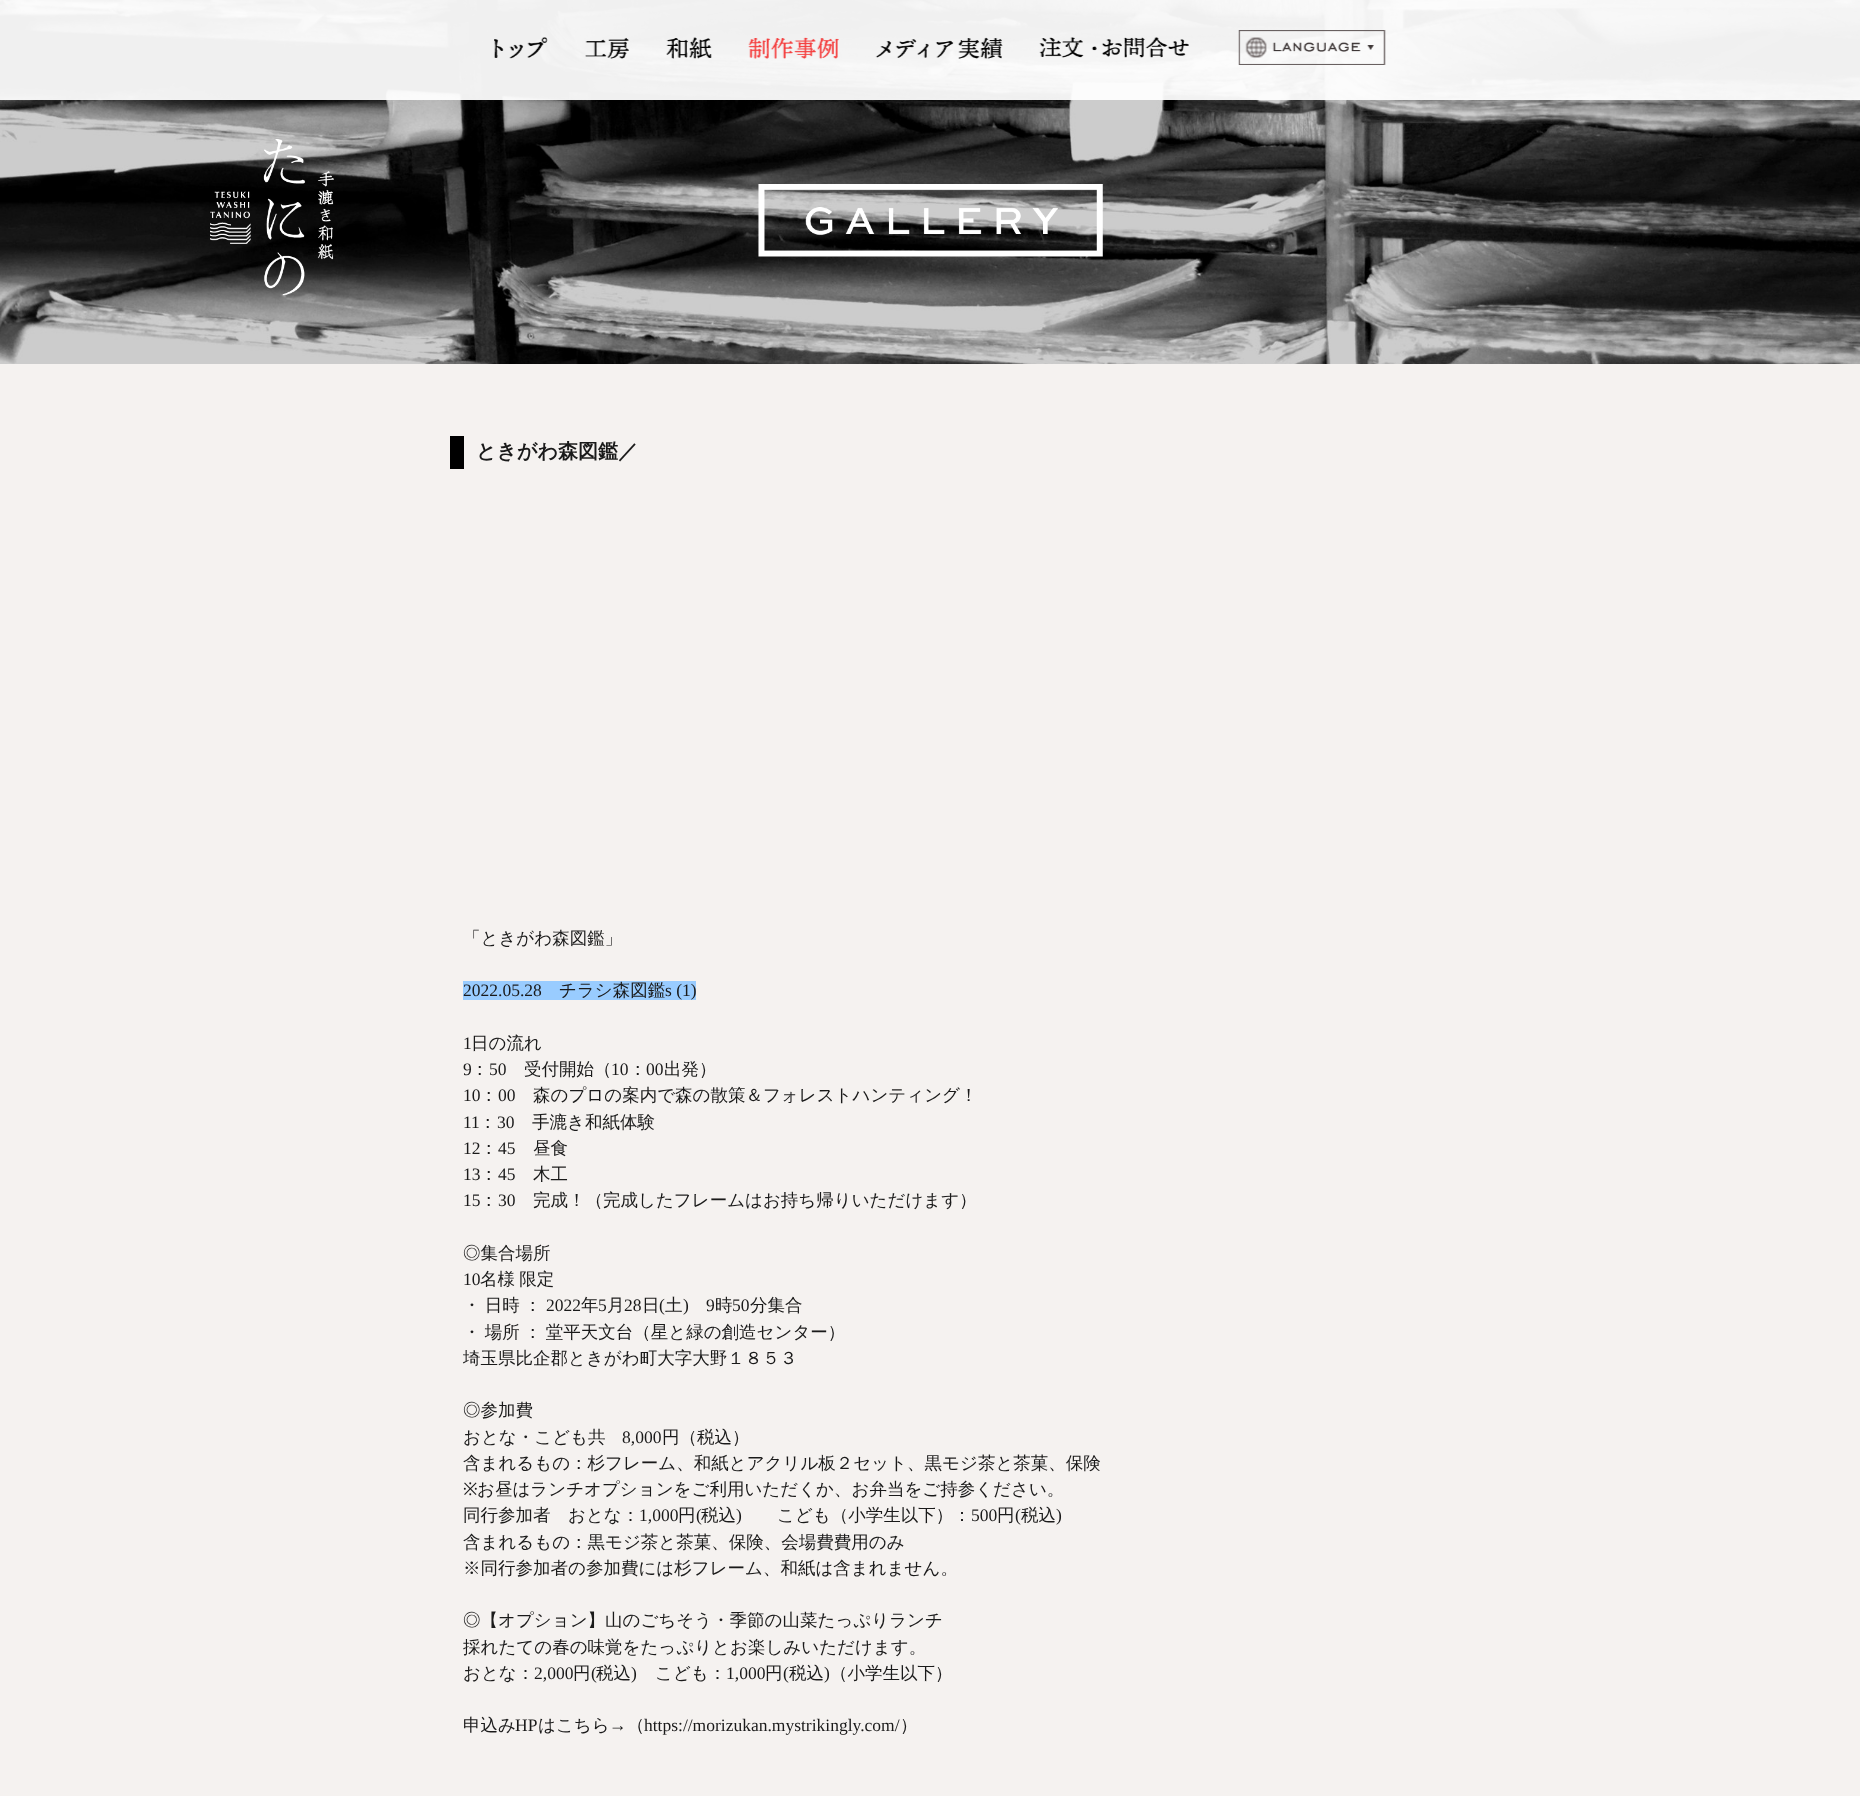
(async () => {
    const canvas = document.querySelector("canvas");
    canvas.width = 1860;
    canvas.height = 1796;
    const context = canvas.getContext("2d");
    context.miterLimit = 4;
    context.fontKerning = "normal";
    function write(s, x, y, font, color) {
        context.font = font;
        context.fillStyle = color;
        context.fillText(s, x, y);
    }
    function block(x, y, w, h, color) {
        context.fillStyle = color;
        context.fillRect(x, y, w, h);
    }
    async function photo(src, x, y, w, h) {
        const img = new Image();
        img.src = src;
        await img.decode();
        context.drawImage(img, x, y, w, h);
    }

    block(0, 0, 1860, 1796, "rgb(245, 242, 240)");
    await photo("media/8.png", 0, 0, 1860, 364);
    block(0, 0, 1860, 100, "rgba(255, 255, 255, 0.94)");
    await photo("media/1.png", 494, 37, 54, 22);
    await photo("media/2.png", 585, 37, 44, 22);
    await photo("media/3.png", 666, 37, 46, 22);
    await photo("media/4.png", 748, 37, 91, 22);
    await photo("media/5.png", 875, 37, 128, 22);
    await photo("media/6.png", 1039, 37, 150, 21);
    await photo("media/7.png", 1238, 30, 148, 35);
    await photo("media/9.png", 758, 184, 345, 73);
    await photo("media/10.png", 210, 139, 124, 157);
    block(450, 436, 14, 33, "rgb(0, 0, 0)");
    write("ときがわ森図鑑／", 476, 458, "bold 20px WenQuanYi Zen Hei", "rgb(26, 26, 26)");
    write("「ときがわ森図鑑」", 463, 944, "500 17.5px WenQuanYi Zen Hei", "rgb(26, 26, 26)");
    block(463, 981, 233, 19, "rgb(153, 204, 255)");
    write("2022.05.28", 463, 996, "17.5px Liberation Serif", "rgb(26, 26, 26)");
    write("チラシ森図鑑", 559, 996, "500 17.5px WenQuanYi Zen Hei", "rgb(26, 26, 26)");
    write("s (1)", 665, 996, "17.5px Liberation Serif", "rgb(26, 26, 26)");
    write("1", 463, 1049, "17.5px Liberation Serif", "rgb(26, 26, 26)");
    write("日の流れ", 471, 1049, "500 17.5px WenQuanYi Zen Hei", "rgb(26, 26, 26)");
    write("9", 463, 1075, "17.5px Liberation Serif", "rgb(26, 26, 26)");
    write("：", 471, 1075, "500 17.5px WenQuanYi Zen Hei", "rgb(26, 26, 26)");
    write("50", 489, 1075, "17.5px Liberation Serif", "rgb(26, 26, 26)");
    write("受付開始（", 524, 1075, "500 17.5px WenQuanYi Zen Hei", "rgb(26, 26, 26)");
    write("10", 611, 1075, "17.5px Liberation Serif", "rgb(26, 26, 26)");
    write("：", 629, 1075, "500 17.5px WenQuanYi Zen Hei", "rgb(26, 26, 26)");
    write("00", 646, 1075, "17.5px Liberation Serif", "rgb(26, 26, 26)");
    write("出発）", 664, 1075, "500 17.5px WenQuanYi Zen Hei", "rgb(26, 26, 26)");
    write("10", 463, 1101, "17.5px Liberation Serif", "rgb(26, 26, 26)");
    write("：", 480, 1101, "500 17.5px WenQuanYi Zen Hei", "rgb(26, 26, 26)");
    write("00", 498, 1101, "17.5px Liberation Serif", "rgb(26, 26, 26)");
    write("森のプロの案内で森の散策＆フォレストハンティング！", 533, 1101, "500 17.5px WenQuanYi Zen Hei", "rgb(26, 26, 26)");
    write("11", 463, 1128, "17.5px Liberation Serif", "rgb(26, 26, 26)");
    write("：", 479, 1128, "500 17.5px WenQuanYi Zen Hei", "rgb(26, 26, 26)");
    write("30", 497, 1128, "17.5px Liberation Serif", "rgb(26, 26, 26)");
    write("手漉き和紙体験", 532, 1128, "500 17.5px WenQuanYi Zen Hei", "rgb(26, 26, 26)");
    write("12", 463, 1154, "17.5px Liberation Serif", "rgb(26, 26, 26)");
    write("：", 480, 1154, "500 17.5px WenQuanYi Zen Hei", "rgb(26, 26, 26)");
    write("45", 498, 1154, "17.5px Liberation Serif", "rgb(26, 26, 26)");
    write("昼食", 533, 1154, "500 17.5px WenQuanYi Zen Hei", "rgb(26, 26, 26)");
    write("13", 463, 1180, "17.5px Liberation Serif", "rgb(26, 26, 26)");
    write("：", 480, 1180, "500 17.5px WenQuanYi Zen Hei", "rgb(26, 26, 26)");
    write("45", 498, 1180, "17.5px Liberation Serif", "rgb(26, 26, 26)");
    write("木工", 533, 1180, "500 17.5px WenQuanYi Zen Hei", "rgb(26, 26, 26)");
    write("15", 463, 1206, "17.5px Liberation Serif", "rgb(26, 26, 26)");
    write("：", 480, 1206, "500 17.5px WenQuanYi Zen Hei", "rgb(26, 26, 26)");
    write("30", 498, 1206, "17.5px Liberation Serif", "rgb(26, 26, 26)");
    write("完成！（完成したフレームはお持ち帰りいただけます）", 533, 1206, "500 17.5px WenQuanYi Zen Hei", "rgb(26, 26, 26)");
    write("◎集合場所", 463, 1259, "500 17.5px WenQuanYi Zen Hei", "rgb(26, 26, 26)");
    write("10", 463, 1285, "17.5px Liberation Serif", "rgb(26, 26, 26)");
    context.wordSpacing = "-1px";
    write("名様 限定", 480, 1285, "500 17.5px WenQuanYi Zen Hei", "rgb(26, 26, 26)");
    write("・ 日時 ：", 463, 1311, "500 17.5px WenQuanYi Zen Hei", "rgb(26, 26, 26)");
    context.wordSpacing = "0px";
    write("2022", 546, 1311, "17.5px Liberation Serif", "rgb(26, 26, 26)");
    write("年", 581, 1311, "500 17.5px WenQuanYi Zen Hei", "rgb(26, 26, 26)");
    write("5", 598, 1311, "17.5px Liberation Serif", "rgb(26, 26, 26)");
    write("月", 607, 1311, "500 17.5px WenQuanYi Zen Hei", "rgb(26, 26, 26)");
    write("28", 624, 1311, "17.5px Liberation Serif", "rgb(26, 26, 26)");
    write("日", 642, 1311, "500 17.5px WenQuanYi Zen Hei", "rgb(26, 26, 26)");
    write("(", 659, 1311, "17.5px Liberation Serif", "rgb(26, 26, 26)");
    write("土", 665, 1311, "500 17.5px WenQuanYi Zen Hei", "rgb(26, 26, 26)");
    write(")", 683, 1311, "17.5px Liberation Serif", "rgb(26, 26, 26)");
    write("9", 706, 1311, "17.5px Liberation Serif", "rgb(26, 26, 26)");
    write("時", 715, 1311, "500 17.5px WenQuanYi Zen Hei", "rgb(26, 26, 26)");
    write("50", 732, 1311, "17.5px Liberation Serif", "rgb(26, 26, 26)");
    write("分集合", 750, 1311, "500 17.5px WenQuanYi Zen Hei", "rgb(26, 26, 26)");
    context.wordSpacing = "-1px";
    write("・ 場所 ： 堂平天文台（星と緑の創造センター）", 463, 1338, "500 17.5px WenQuanYi Zen Hei", "rgb(26, 26, 26)");
    context.wordSpacing = "0px";
    write("埼玉県比企郡ときがわ町大字大野１８５３", 463, 1364, "500 17.5px WenQuanYi Zen Hei", "rgb(26, 26, 26)");
    write("◎参加費", 463, 1416, "500 17.5px WenQuanYi Zen Hei", "rgb(26, 26, 26)");
    write("おとな・こども共", 463, 1443, "500 17.5px WenQuanYi Zen Hei", "rgb(26, 26, 26)");
    write("8,000", 622, 1443, "17.5px Liberation Serif", "rgb(26, 26, 26)");
    write("円（税込）", 662, 1443, "500 17.5px WenQuanYi Zen Hei", "rgb(26, 26, 26)");
    write("含まれるもの：杉フレーム、和紙とアクリル板２セット、黒モジ茶と茶菓、保険", 463, 1469, "500 17.5px WenQuanYi Zen Hei", "rgb(26, 26, 26)");
    write("※", 463, 1495, "17.5px Noto Sans", "rgb(26, 26, 26)");
    write("お昼はランチオプションをご利用いただくか、お弁当をご持参ください。", 477, 1495, "500 17.5px WenQuanYi Zen Hei", "rgb(26, 26, 26)");
    write("同行参加者　おとな：", 463, 1521, "500 17.5px WenQuanYi Zen Hei", "rgb(26, 26, 26)");
    write("1,000", 639, 1521, "17.5px Liberation Serif", "rgb(26, 26, 26)");
    write("円", 678, 1521, "500 17.5px WenQuanYi Zen Hei", "rgb(26, 26, 26)");
    write("(", 696, 1521, "17.5px Liberation Serif", "rgb(26, 26, 26)");
    write("税込", 701, 1521, "500 17.5px WenQuanYi Zen Hei", "rgb(26, 26, 26)");
    write(")", 736, 1521, "17.5px Liberation Serif", "rgb(26, 26, 26)");
    write("こども（小学生以下）：", 777, 1521, "500 17.5px WenQuanYi Zen Hei", "rgb(26, 26, 26)");
    write("500", 971, 1521, "17.5px Liberation Serif", "rgb(26, 26, 26)");
    write("円", 997, 1521, "500 17.5px WenQuanYi Zen Hei", "rgb(26, 26, 26)");
    write("(", 1015, 1521, "17.5px Liberation Serif", "rgb(26, 26, 26)");
    write("税込", 1021, 1521, "500 17.5px WenQuanYi Zen Hei", "rgb(26, 26, 26)");
    write(")", 1056, 1521, "17.5px Liberation Serif", "rgb(26, 26, 26)");
    write("含まれるもの：黒モジ茶と茶菓、保険、会場費費用のみ", 463, 1548, "500 17.5px WenQuanYi Zen Hei", "rgb(26, 26, 26)");
    write("※同行参加者の参加費には杉フレーム、和紙は含まれません。", 463, 1574, "500 17.5px WenQuanYi Zen Hei", "rgb(26, 26, 26)");
    write("◎【オプション】山のごちそう・季節の山菜たっぷりランチ", 463, 1626, "500 17.5px WenQuanYi Zen Hei", "rgb(26, 26, 26)");
    write("採れたての春の味覚をたっぷりとお楽しみいただけます。", 463, 1653, "500 17.5px WenQuanYi Zen Hei", "rgb(26, 26, 26)");
    write("おとな：", 463, 1679, "500 17.5px WenQuanYi Zen Hei", "rgb(26, 26, 26)");
    write("2,000", 534, 1679, "17.5px Liberation Serif", "rgb(26, 26, 26)");
    write("円", 573, 1679, "500 17.5px WenQuanYi Zen Hei", "rgb(26, 26, 26)");
    write("(", 591, 1679, "17.5px Liberation Serif", "rgb(26, 26, 26)");
    write("税込", 596, 1679, "500 17.5px WenQuanYi Zen Hei", "rgb(26, 26, 26)");
    write(")", 631, 1679, "17.5px Liberation Serif", "rgb(26, 26, 26)");
    write("こども：", 655, 1679, "500 17.5px WenQuanYi Zen Hei", "rgb(26, 26, 26)");
    write("1,000", 726, 1679, "17.5px Liberation Serif", "rgb(26, 26, 26)");
    write("円", 765, 1679, "500 17.5px WenQuanYi Zen Hei", "rgb(26, 26, 26)");
    write("(", 783, 1679, "17.5px Liberation Serif", "rgb(26, 26, 26)");
    write("税込", 789, 1679, "500 17.5px WenQuanYi Zen Hei", "rgb(26, 26, 26)");
    write(")", 824, 1679, "17.5px Liberation Serif", "rgb(26, 26, 26)");
    write("（小学生以下）", 830, 1679, "500 17.5px WenQuanYi Zen Hei", "rgb(26, 26, 26)");
    write("申込み", 463, 1731, "500 17.5px WenQuanYi Zen Hei", "rgb(26, 26, 26)");
    write("HP", 515, 1731, "17.5px Liberation Serif", "rgb(26, 26, 26)");
    write("はこちら", 538, 1731, "500 17.5px WenQuanYi Zen Hei", "rgb(26, 26, 26)");
    write("→", 609, 1731, "17.5px Liberation Serif", "rgb(26, 26, 26)");
    write("（", 627, 1731, "500 17.5px WenQuanYi Zen Hei", "rgb(26, 26, 26)");
    write("https://morizukan.mystrikingly.com/", 644, 1731, "17.5px Liberation Serif", "rgb(26, 26, 26)");
    write("）", 900, 1731, "500 17.5px WenQuanYi Zen Hei", "rgb(26, 26, 26)");
})();
